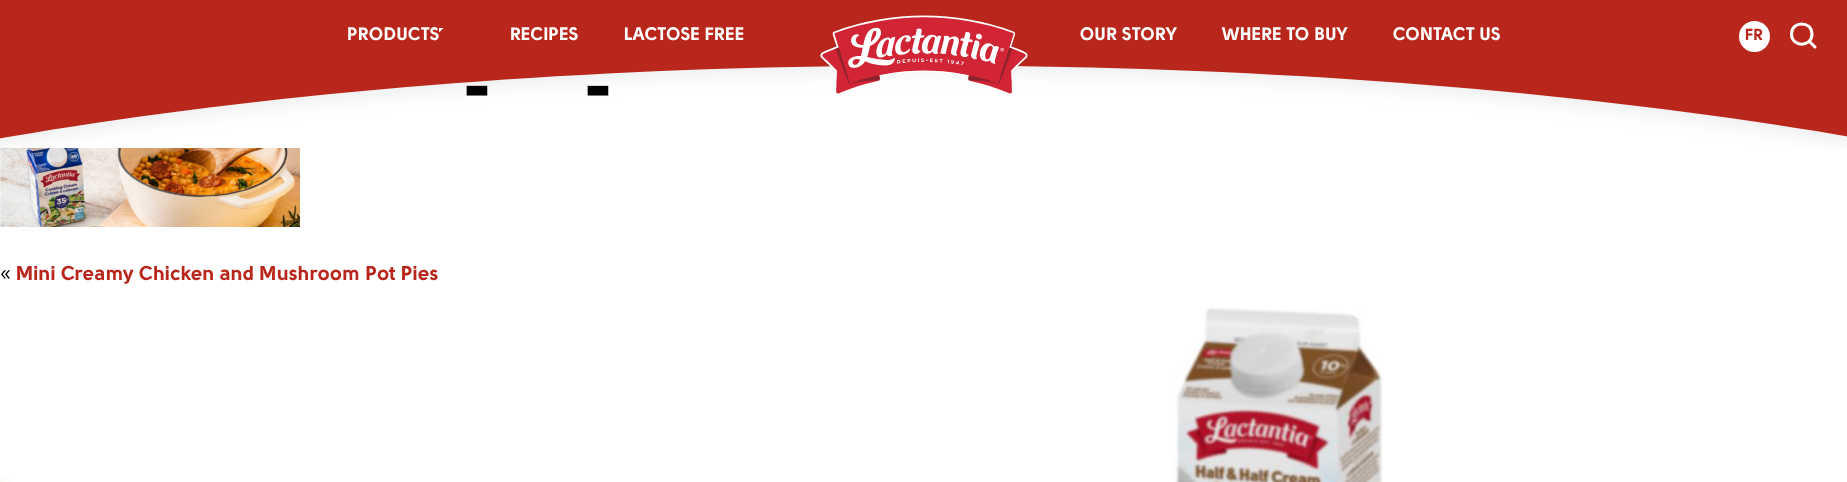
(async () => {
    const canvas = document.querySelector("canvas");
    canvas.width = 1847;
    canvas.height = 482;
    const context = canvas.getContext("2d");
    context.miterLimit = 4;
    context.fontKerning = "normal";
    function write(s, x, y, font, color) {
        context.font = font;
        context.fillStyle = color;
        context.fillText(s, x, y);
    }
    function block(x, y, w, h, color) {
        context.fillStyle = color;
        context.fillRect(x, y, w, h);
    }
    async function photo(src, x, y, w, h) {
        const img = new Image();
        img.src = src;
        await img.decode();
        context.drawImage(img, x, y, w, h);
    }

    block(0, 0, 1847, 482, "rgb(255, 255, 255)");
    write("-", 465, 112, "900 64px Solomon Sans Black", "rgb(0, 0, 0)");
    write("-", 586, 112, "900 64px Solomon Sans Black", "rgb(0, 0, 0)");
    await photo("media/3.png", 0, 148, 300, 79);
    await photo("media/1.png", 0, 0, 1847, 149);
    await photo("media/2.png", 820, 15, 208, 79);
    write("PRODUCTS", 347, 40, "bold 18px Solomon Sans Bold", "rgb(255, 255, 255)");
    context.save();
    context.beginPath();
    context.rect(439, 28, 7, 4);
    context.clip();
    context.beginPath();
    context.moveTo(435.5, 26);
    context.lineTo(439.5, 30);
    context.lineTo(443.5, 26);
    context.strokeStyle = "rgb(255, 255, 255)";
    context.lineWidth = 2.9;
    context.lineCap = "round";
    context.stroke();
    context.restore();
    write("RECIPES", 510, 40, "bold 18px Solomon Sans Bold", "rgb(255, 255, 255)");
    write("LACTOSE FREE", 624, 40, "bold 18px Solomon Sans Bold", "rgb(255, 255, 255)");
    write("OUR STORY", 1080, 40, "bold 18px Solomon Sans Bold", "rgb(255, 255, 255)");
    write("WHERE TO BUY", 1222, 40, "bold 18px Solomon Sans Bold", "rgb(255, 255, 255)");
    write("CONTACT US", 1393, 40, "bold 18px Solomon Sans Bold", "rgb(255, 255, 255)");
    context.beginPath();
    context.arc(1754.5, 36.5, 15.5, 0, Math.PI * 2);
    context.fill();
    write("FR", 1745, 40, "bold 16px Solomon Sans Bold", "rgb(185, 38, 27)");
    context.beginPath();
    context.moveTo(1812, 34);
    context.bezierCurveTo(1812, 47.5, 1791.5, 47.5, 1791.5, 34);
    context.bezierCurveTo(1791.5, 20.5, 1812, 20.5, 1812, 34);
    context.closePath();
    context.moveTo(1815, 47);
    context.lineTo(1809.5, 41.5);
    context.strokeStyle = "rgb(255, 255, 255)";
    context.lineWidth = 3;
    context.lineCap = "round";
    context.lineJoin = "round";
    context.stroke();
    write("«", 0, 280, "20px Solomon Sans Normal", "rgb(0, 0, 0)");
    write("Mini Creamy Chicken and Mushroom Pot Pies", 16, 280, "bold 20px Solomon Sans Bold", "rgb(185, 38, 27)");
    await photo("media/4.png", 0, 308, 1383, 174);
})();
